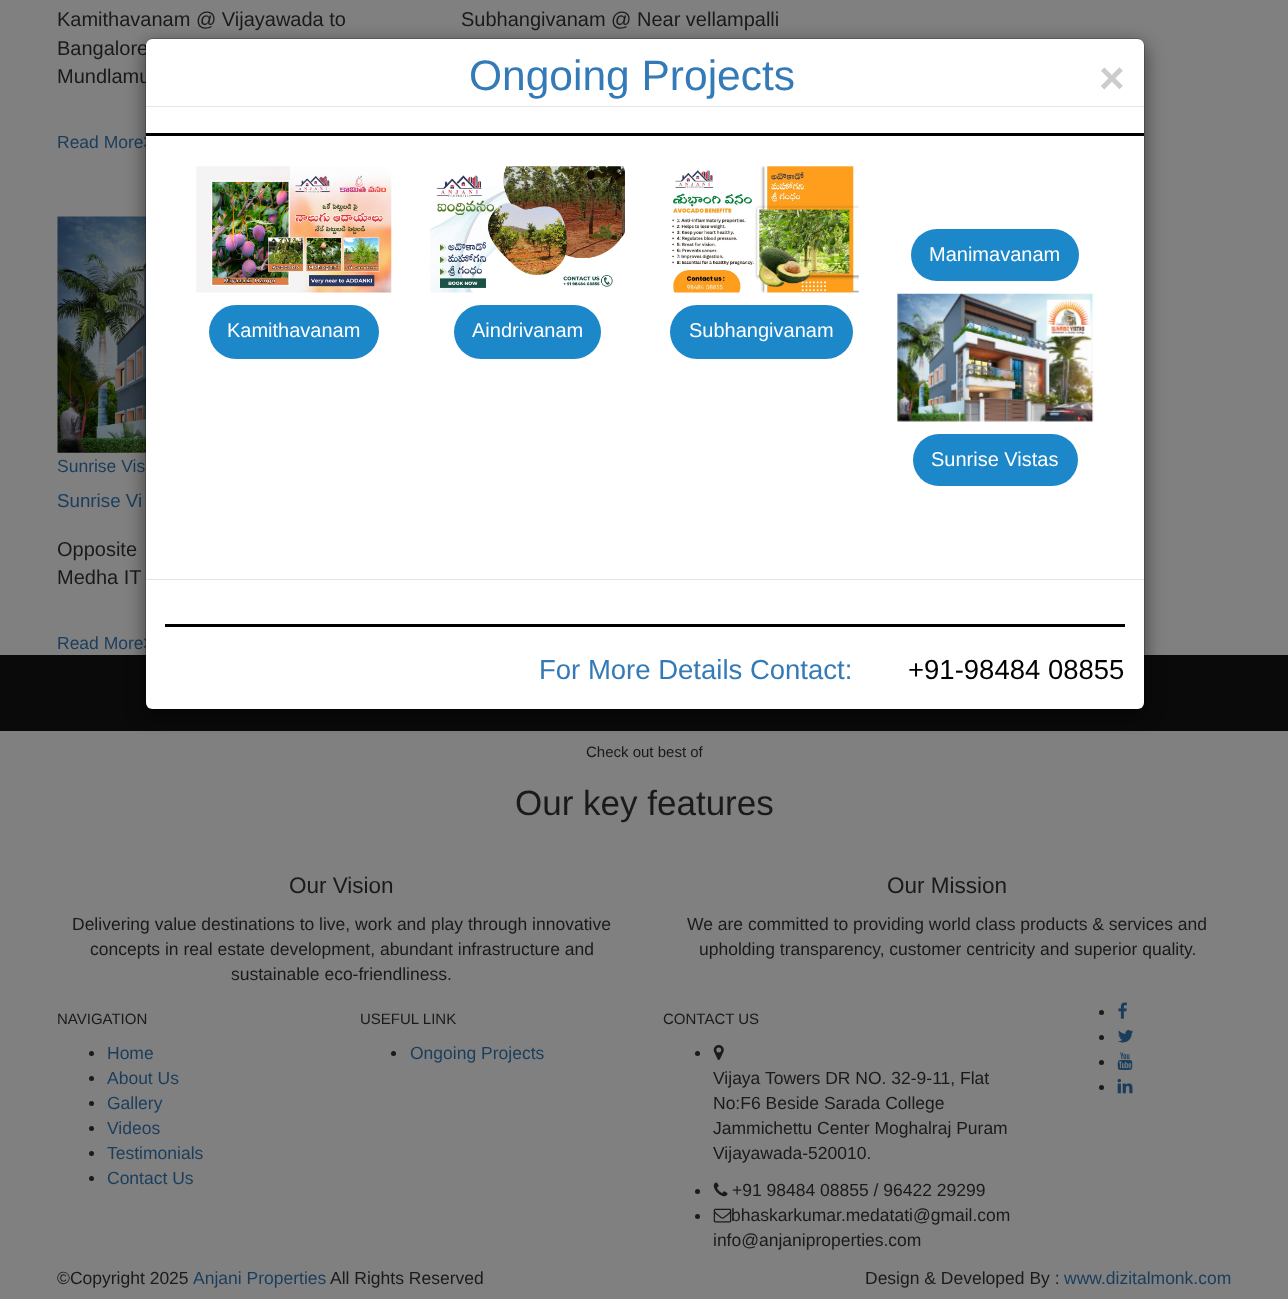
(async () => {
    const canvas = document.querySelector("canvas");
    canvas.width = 1288;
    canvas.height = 1299;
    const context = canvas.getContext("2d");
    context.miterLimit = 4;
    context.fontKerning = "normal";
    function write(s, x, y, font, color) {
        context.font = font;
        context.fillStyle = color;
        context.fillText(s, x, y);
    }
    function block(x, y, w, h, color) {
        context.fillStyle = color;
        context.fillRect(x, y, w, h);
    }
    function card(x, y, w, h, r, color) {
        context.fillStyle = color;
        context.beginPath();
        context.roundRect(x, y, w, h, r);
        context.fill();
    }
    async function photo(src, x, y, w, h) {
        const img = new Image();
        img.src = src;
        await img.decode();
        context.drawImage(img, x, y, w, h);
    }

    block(0, 0, 1288, 1299, "rgb(128, 128, 128)");
    write("Kamithavanam @ Vijayawada to", 57, 26, "20px Liberation Sans", "rgb(26, 26, 26)");
    write("Bangalore", 57, 55, "20px Liberation Sans", "rgb(26, 26, 26)");
    write("Mundlamu", 57, 83, "20px Liberation Sans", "rgb(26, 26, 26)");
    write("Read More", 57, 148, "17.5px Liberation Sans", "rgb(26, 61, 92)");
    await photo("media/1.png", 143, 137, 3, 10);
    write("Subhangivanam @ Near vellampalli", 461, 26, "20px Liberation Sans", "rgb(26, 26, 26)");
    await photo("media/2.png", 57, 216, 89, 237);
    write("Sunrise Vis", 57, 472, "17.5px Liberation Sans", "rgb(26, 61, 92)");
    write("Sunrise Vi", 57, 507, "18.75px Liberation Sans", "rgb(26, 61, 92)");
    write("Opposite", 57, 556, "20px Liberation Sans", "rgb(26, 26, 26)");
    write("Medha IT", 57, 584, "20px Liberation Sans", "rgb(26, 26, 26)");
    write("Read More", 57, 649, "17.5px Liberation Sans", "rgb(26, 61, 92)");
    await photo("media/3.png", 143, 638, 3, 10);
    block(0, 655, 1288, 76, "rgb(10, 10, 10)");
    context.fillStyle = "rgba(0, 0, 0, 0.5)";
    context.filter = "blur(9.5px)";
    context.beginPath();
    context.roundRect(145, 44, 1000, 672, 8);
    context.fill();
    context.filter = "none";
    card(146, 39, 998, 670, 6, "rgb(255, 255, 255)");
    context.beginPath();
    context.roundRect(145.5, 38.5, 999, 671, 7.5);
    context.strokeStyle = "rgba(0, 0, 0, 0.2)";
    context.stroke();
    block(146, 106, 998, 1, "rgb(229, 229, 229)");
    write("Ongoing Projects", 469, 90, "42.5px Liberation Sans", "rgb(51, 122, 183)");
    write("×", 1099, 93, "bold 44px Liberation Sans", "rgb(204, 204, 204)");
    block(146, 133, 998, 3, "rgb(0, 0, 0)");
    card(911, 229, 168, 52, 26, "rgb(28, 135, 201)");
    write("Manimavanam", 929, 261, "20px Liberation Sans", "rgb(255, 255, 255)");
    await photo("media/4.png", 196, 166, 196, 127);
    card(209, 305, 170, 54, 27, "rgb(28, 135, 201)");
    write("Kamithavanam", 227, 337, "20px Liberation Sans", "rgb(255, 255, 255)");
    await photo("media/5.png", 430, 166, 195, 127);
    card(454, 305, 147, 54, 27, "rgb(28, 135, 201)");
    write("Aindrivanam", 472, 337, "20px Liberation Sans", "rgb(255, 255, 255)");
    await photo("media/6.png", 672, 166, 187, 127);
    card(670, 305, 183, 54, 27, "rgb(28, 135, 201)");
    write("Subhangivanam", 689, 337, "20px Liberation Sans", "rgb(255, 255, 255)");
    await photo("media/7.png", 897, 293, 197, 129);
    card(913, 434, 165, 52, 26, "rgb(28, 135, 201)");
    write("Sunrise Vistas", 931, 466, "20px Liberation Sans", "rgb(255, 255, 255)");
    block(146, 579, 998, 1, "rgb(229, 229, 229)");
    block(165, 624, 960, 3, "rgb(0, 0, 0)");
    write("For More Details Contact:", 539, 679, "27.5px Liberation Sans", "rgb(51, 122, 183)");
    write("+91-98484 08855", 908, 679, "27.5px Liberation Sans", "rgb(0, 0, 0)");
    write("Check out best of", 586, 757, "15px Liberation Sans", "rgb(26, 26, 26)");
    write("Our key features", 515, 815, "35px Liberation Sans", "rgb(26, 26, 26)");
    write("Our Vision", 289, 893, "22.5px Liberation Sans", "rgb(26, 26, 26)");
    write("Delivering value destinations to live, work and play through innovative", 72, 930, "17.5px Liberation Sans", "rgb(26, 26, 26)");
    write("concepts in real estate development, abundant infrastructure and", 90, 955, "17.5px Liberation Sans", "rgb(26, 26, 26)");
    write("sustainable eco-friendliness.", 231, 980, "17.5px Liberation Sans", "rgb(26, 26, 26)");
    write("Our Mission", 887, 893, "22.5px Liberation Sans", "rgb(26, 26, 26)");
    write("We are committed to providing world class products & services and", 687, 930, "17.5px Liberation Sans", "rgb(26, 26, 26)");
    write("upholding transparency, customer centricity and superior quality.", 699, 955, "17.5px Liberation Sans", "rgb(26, 26, 26)");
    write("NAVIGATION", 57, 1024, "15px Liberation Sans", "rgb(26, 26, 26)");
    context.beginPath();
    context.arc(91.5, 1053.5, 2.5, 0, Math.PI * 2);
    context.fill();
    write("Home", 107, 1059, "17.5px Liberation Sans", "rgb(26, 61, 92)");
    context.fillStyle = "rgb(26, 26, 26)";
    context.beginPath();
    context.arc(91.5, 1078.5, 2.5, 0, Math.PI * 2);
    context.fill();
    write("About Us", 107, 1084, "17.5px Liberation Sans", "rgb(26, 61, 92)");
    context.fillStyle = "rgb(26, 26, 26)";
    context.beginPath();
    context.arc(91.5, 1103.5, 2.5, 0, Math.PI * 2);
    context.fill();
    write("Gallery", 107, 1109, "17.5px Liberation Sans", "rgb(26, 61, 92)");
    context.fillStyle = "rgb(26, 26, 26)";
    context.beginPath();
    context.arc(91.5, 1128.5, 2.5, 0, Math.PI * 2);
    context.fill();
    write("Videos", 107, 1134, "17.5px Liberation Sans", "rgb(26, 61, 92)");
    context.fillStyle = "rgb(26, 26, 26)";
    context.beginPath();
    context.arc(91.5, 1153.5, 2.5, 0, Math.PI * 2);
    context.fill();
    write("Testimonials", 107, 1159, "17.5px Liberation Sans", "rgb(26, 61, 92)");
    context.fillStyle = "rgb(26, 26, 26)";
    context.beginPath();
    context.arc(91.5, 1178.5, 2.5, 0, Math.PI * 2);
    context.fill();
    write("Contact Us", 107, 1184, "17.5px Liberation Sans", "rgb(26, 61, 92)");
    write("USEFUL LINK", 360, 1024, "15px Liberation Sans", "rgb(26, 26, 26)");
    context.beginPath();
    context.arc(393.5, 1053.5, 2.5, 0, Math.PI * 2);
    context.fill();
    write("Ongoing Projects", 410, 1059, "17.5px Liberation Sans", "rgb(26, 61, 92)");
    write("CONTACT US", 663, 1024, "15px Liberation Sans", "rgb(26, 26, 26)");
    context.beginPath();
    context.arc(697.5, 1053.5, 2.5, 0, Math.PI * 2);
    context.fill();
    await photo("media/8.png", 713, 1045, 11, 15);
    write("Vijaya Towers DR NO. 32-9-11, Flat", 713, 1084, "17.5px Liberation Sans", "rgb(26, 26, 26)");
    write("No:F6 Beside Sarada College", 713, 1109, "17.5px Liberation Sans", "rgb(26, 26, 26)");
    write("Jammichettu Center Moghalraj Puram", 713, 1134, "17.5px Liberation Sans", "rgb(26, 26, 26)");
    write("Vijayawada-520010.", 713, 1159, "17.5px Liberation Sans", "rgb(26, 26, 26)");
    context.beginPath();
    context.arc(697.5, 1191.5, 2.5, 0, Math.PI * 2);
    context.fill();
    await photo("media/9.png", 713, 1182, 15, 15);
    write("+91 98484 08855 / 96422 29299", 732, 1196, "17.5px Liberation Sans", "rgb(26, 26, 26)");
    context.beginPath();
    context.arc(697.5, 1216.5, 2.5, 0, Math.PI * 2);
    context.fill();
    await photo("media/10.png", 713, 1208, 19, 15);
    write("bhaskarkumar.medatati@gmail.com", 731, 1221, "17.5px Liberation Sans", "rgb(26, 26, 26)");
    write("info@anjaniproperties.com", 713, 1246, "17.5px Liberation Sans", "rgb(26, 26, 26)");
    context.beginPath();
    context.arc(1101.5, 1012.5, 2.5, 0, Math.PI * 2);
    context.fill();
    await photo("media/11.png", 1118, 1002, 9, 17);
    context.beginPath();
    context.arc(1101.5, 1037.5, 2.5, 0, Math.PI * 2);
    context.fill();
    await photo("media/12.png", 1118, 1030, 16, 13);
    context.beginPath();
    context.arc(1101.5, 1062.5, 2.5, 0, Math.PI * 2);
    context.fill();
    await photo("media/13.png", 1117, 1052, 16, 18);
    context.beginPath();
    context.arc(1101.5, 1087.5, 2.5, 0, Math.PI * 2);
    context.fill();
    await photo("media/14.png", 1117, 1079, 16, 15);
    write("©Copyright 2025", 57, 1284, "17.5px Liberation Sans", "rgb(26, 26, 26)");
    write("Anjani Properties", 193, 1284, "17.5px Liberation Sans", "rgb(26, 61, 92)");
    write("All Rights Reserved", 330, 1284, "17.5px Liberation Sans", "rgb(26, 26, 26)");
    write("Design & Developed By :", 865, 1284, "17.5px Liberation Sans", "rgb(26, 26, 26)");
    write("www.dizitalmonk.com", 1064, 1284, "17.5px Liberation Sans", "rgb(26, 61, 92)");
})();
